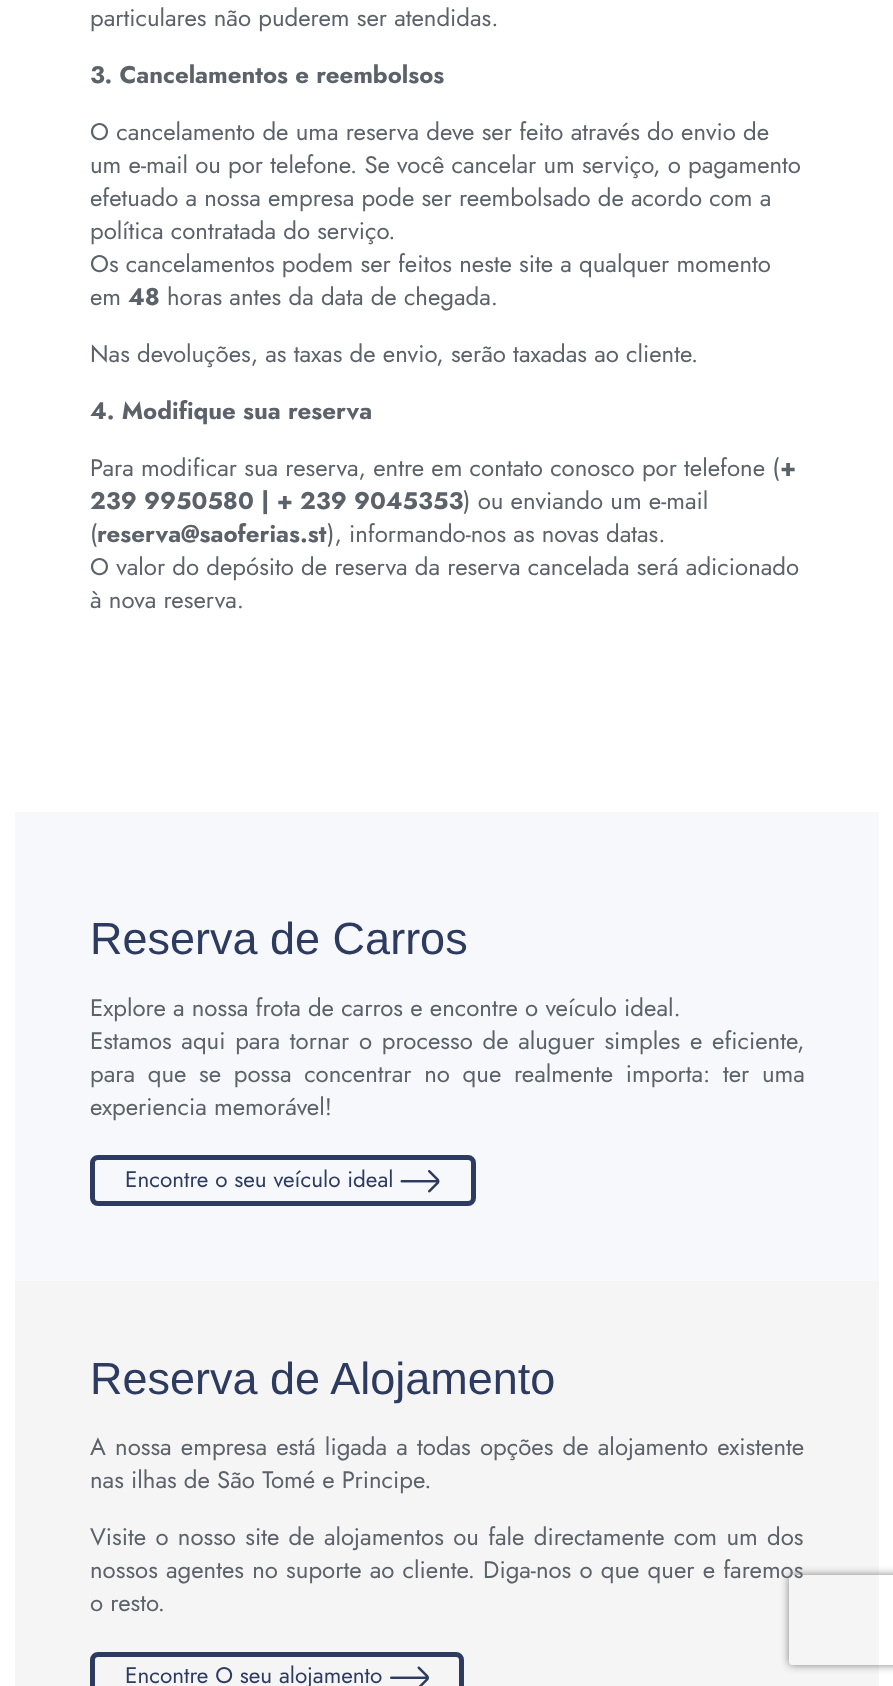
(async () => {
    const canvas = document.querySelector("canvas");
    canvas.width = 893;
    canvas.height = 1686;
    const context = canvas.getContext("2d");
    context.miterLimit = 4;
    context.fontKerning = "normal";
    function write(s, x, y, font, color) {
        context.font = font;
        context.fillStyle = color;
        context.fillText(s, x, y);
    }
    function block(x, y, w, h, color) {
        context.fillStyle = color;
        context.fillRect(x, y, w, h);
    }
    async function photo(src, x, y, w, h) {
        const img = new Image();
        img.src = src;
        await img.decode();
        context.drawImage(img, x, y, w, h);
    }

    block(0, 0, 893, 1686, "rgb(255, 255, 255)");
    write("particulares não puderem ser atendidas.", 90, 26, "24px Jost", "rgb(92, 98, 106)");
    write("3. Cancelamentos e reembolsos", 90, 83, "bold 24px Jost", "rgb(92, 98, 106)");
    write("O cancelamento de uma reserva deve ser feito através do envio de", 90, 140, "24px Jost", "rgb(92, 98, 106)");
    write("um e-mail ou por telefone. Se você cancelar um serviço, o pagamento", 90, 173, "24px Jost", "rgb(92, 98, 106)");
    write("efetuado a nossa empresa pode ser reembolsado de acordo com a", 90, 206, "24px Jost", "rgb(92, 98, 106)");
    write("política contratada do serviço.", 90, 239, "24px Jost", "rgb(92, 98, 106)");
    write("Os cancelamentos podem ser feitos neste site a qualquer momento", 90, 272, "24px Jost", "rgb(92, 98, 106)");
    write("em", 90, 305, "24px Jost", "rgb(92, 98, 106)");
    write("48", 128, 305, "bold 24px Jost", "rgb(92, 98, 106)");
    write("horas antes da data de chegada.", 167, 305, "24px Jost", "rgb(92, 98, 106)");
    write("Nas devoluções, as taxas de envio, serão taxadas ao cliente.", 90, 362, "24px Jost", "rgb(92, 98, 106)");
    write("4. Modifique sua reserva", 90, 419, "bold 24px Jost", "rgb(92, 98, 106)");
    write("Para modificar sua reserva, entre em contato conosco por telefone (", 90, 476, "24px Jost", "rgb(92, 98, 106)");
    write("+", 780, 476, "bold 24px Jost", "rgb(92, 98, 106)");
    write("239 9950580 | + 239 9045353", 90, 509, "bold 24px Jost", "rgb(92, 98, 106)");
    write(") ou enviando um e-mail", 463, 509, "24px Jost", "rgb(92, 98, 106)");
    write("(", 90, 542, "24px Jost", "rgb(92, 98, 106)");
    write("reserva@saoferias.st", 97, 542, "bold 24px Jost", "rgb(92, 98, 106)");
    write("), informando-nos as novas datas.", 327, 542, "24px Jost", "rgb(92, 98, 106)");
    write("O valor do depósito de reserva da reserva cancelada será adicionado", 90, 575, "24px Jost", "rgb(92, 98, 106)");
    write("à nova reserva.", 90, 608, "24px Jost", "rgb(92, 98, 106)");
    block(15, 812, 864, 469, "rgb(246, 248, 251)");
    write("Reserva de Carros", 90, 954, "45px Liberation Sans", "rgb(45, 59, 96)");
    write("Explore a nossa frota de carros e encontre o veículo ideal.", 90, 1016, "24px Jost", "rgb(92, 98, 106)");
    context.wordSpacing = "2.5px";
    write("Estamos aqui para tornar o processo de aluguer simples e eficiente,", 90, 1049, "24px Jost", "rgb(92, 98, 106)");
    context.wordSpacing = "5.5px";
    write("para que se possa concentrar no que realmente importa: ter uma", 90, 1082, "24px Jost", "rgb(92, 98, 106)");
    context.wordSpacing = "0px";
    write("experiencia memorável!", 90, 1115, "24px Jost", "rgb(92, 98, 106)");
    context.beginPath();
    context.roundRect(92.5, 1157.5, 381, 46, 5.5);
    context.strokeStyle = "rgb(45, 59, 96)";
    context.lineWidth = 5;
    context.stroke();
    write("Encontre o seu veículo ideal", 125, 1187, "22.5px Jost", "rgb(45, 59, 96)");
    await photo("media/1.png", 400, 1170, 40, 23);
    block(15, 1281, 864, 405, "rgb(245, 245, 245)");
    write("Reserva de Alojamento", 90, 1394, "45px Liberation Sans", "rgb(45, 59, 96)");
    context.wordSpacing = "2px";
    write("A nossa empresa está ligada a todas opções de alojamento existente", 90, 1455, "24px Jost", "rgb(92, 98, 106)");
    context.wordSpacing = "0px";
    write("nas ilhas de São Tomé e Principe.", 90, 1488, "24px Jost", "rgb(92, 98, 106)");
    context.wordSpacing = "2.1px";
    write("Visite o nosso site de alojamentos ou fale directamente com um dos", 90, 1545, "24px Jost", "rgb(92, 98, 106)");
    context.wordSpacing = "1px";
    write("nossos agentes no suporte ao cliente. Diga-nos o que quer e faremos", 90, 1578, "24px Jost", "rgb(92, 98, 106)");
    context.wordSpacing = "0px";
    write("o resto.", 90, 1611, "24px Jost", "rgb(92, 98, 106)");
    context.beginPath();
    context.roundRect(92.5, 1654.5, 369, 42, 5.5);
    context.stroke();
    write("Encontre O seu alojamento", 125, 1683, "22.5px Jost", "rgb(45, 59, 96)");
    await photo("media/2.png", 390, 1666, 39, 20);
    context.save();
    context.beginPath();
    context.moveTo(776, 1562);
    context.lineTo(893, 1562);
    context.lineTo(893, 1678);
    context.lineTo(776, 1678);
    context.closePath();
    context.moveTo(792, 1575);
    context.lineTo(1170, 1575);
    context.bezierCurveTo(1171.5, 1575, 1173, 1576.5, 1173, 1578);
    context.lineTo(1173, 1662);
    context.bezierCurveTo(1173, 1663.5, 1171.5, 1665, 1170, 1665);
    context.lineTo(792, 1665);
    context.bezierCurveTo(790.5, 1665, 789, 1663.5, 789, 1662);
    context.lineTo(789, 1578);
    context.bezierCurveTo(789, 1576.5, 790.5, 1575, 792, 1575);
    context.closePath();
    context.clip("evenodd");
    context.fillStyle = "rgb(128, 128, 128)";
    context.filter = "blur(4px)";
    context.beginPath();
    context.roundRect(789, 1575, 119, 90, 3);
    context.fill();
    context.filter = "none";
    context.restore();
})();
